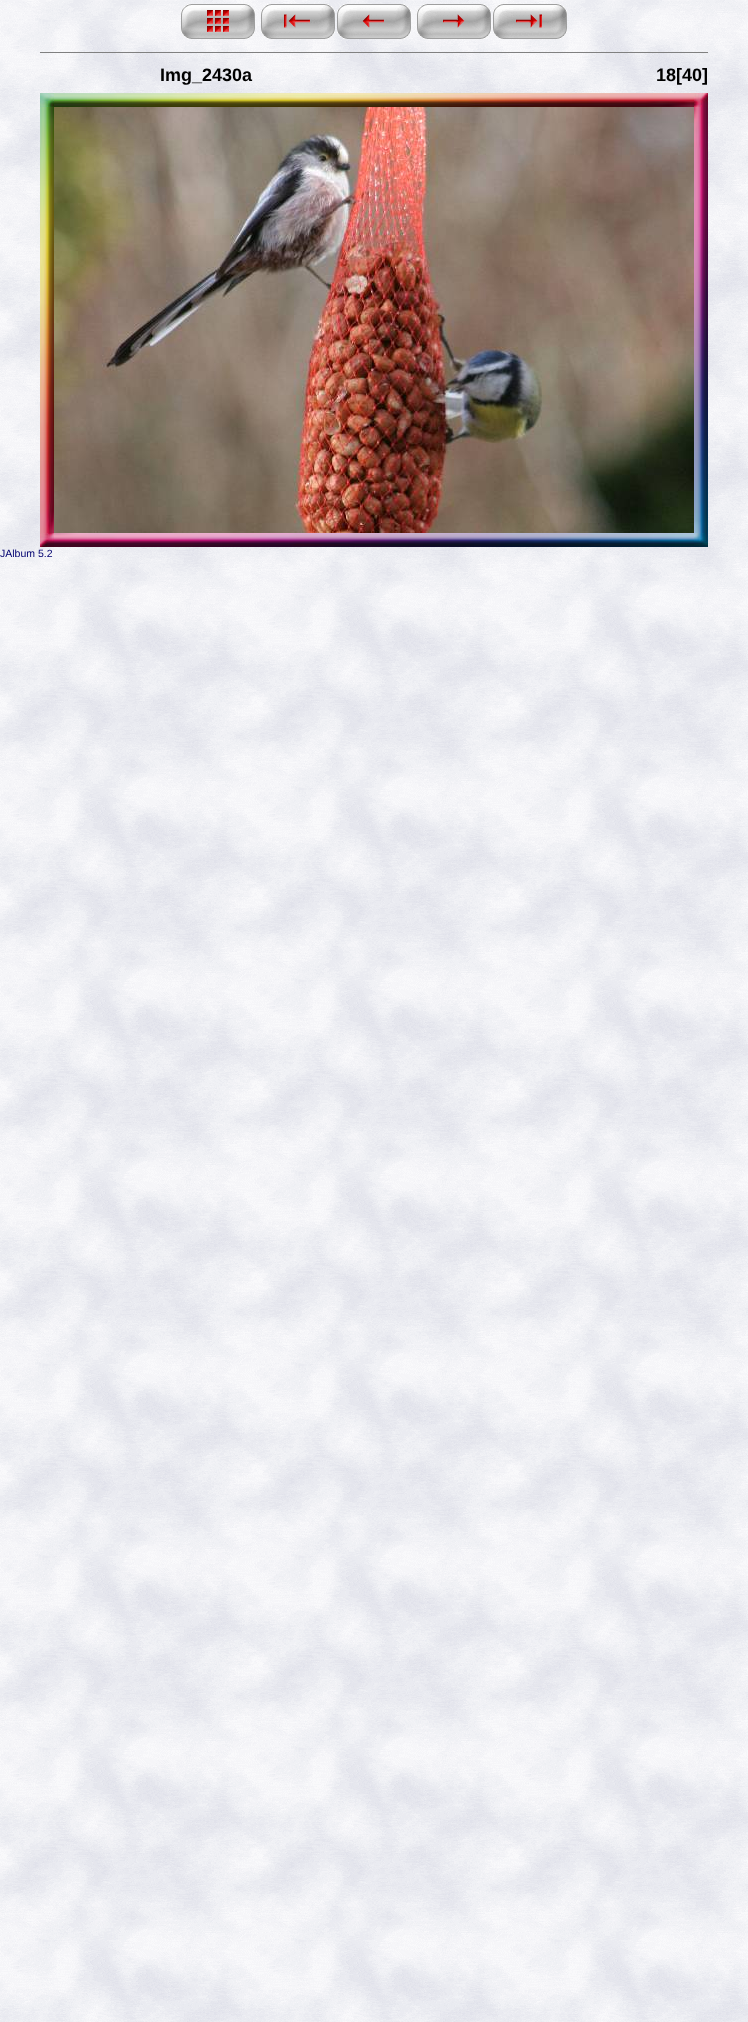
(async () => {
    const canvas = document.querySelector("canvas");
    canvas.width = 748;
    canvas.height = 2022;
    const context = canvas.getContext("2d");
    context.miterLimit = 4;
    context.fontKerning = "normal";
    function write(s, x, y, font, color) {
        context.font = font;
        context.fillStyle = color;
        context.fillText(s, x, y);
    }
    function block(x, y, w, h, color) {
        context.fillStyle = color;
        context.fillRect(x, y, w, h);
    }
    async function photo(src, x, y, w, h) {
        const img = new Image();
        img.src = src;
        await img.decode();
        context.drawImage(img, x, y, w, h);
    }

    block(0, 0, 748, 2022, "rgb(255, 255, 255)");
    await photo("media/1.png", 0, 0, 748, 2022);
    await photo("media/2.png", 181, 4, 74, 35);
    await photo("media/3.png", 261, 4, 74, 35);
    await photo("media/4.png", 337, 4, 74, 35);
    await photo("media/5.png", 417, 4, 74, 35);
    await photo("media/6.png", 493, 4, 74, 35);
    block(40, 52, 668, 1, "rgb(128, 128, 128)");
    write("Img_2430a", 160, 81, "bold 18px Liberation Sans", "rgb(0, 0, 0)");
    write("18[40]", 656, 81, "bold 18px Liberation Sans", "rgb(0, 0, 0)");
    await photo("media/7.png", 40, 93, 14, 14);
    await photo("media/8.png", 54, 93, 640, 14);
    await photo("media/9.png", 694, 93, 14, 14);
    await photo("media/10.png", 40, 107, 14, 426);
    await photo("media/11.png", 54, 107, 640, 426);
    await photo("media/12.png", 694, 107, 14, 426);
    await photo("media/13.png", 40, 533, 14, 14);
    await photo("media/14.png", 54, 533, 640, 14);
    await photo("media/15.png", 694, 533, 14, 14);
    write("JAlbum 5.2", 0, 557, "10.5px Liberation Sans", "rgb(0, 0, 112)");
})();
